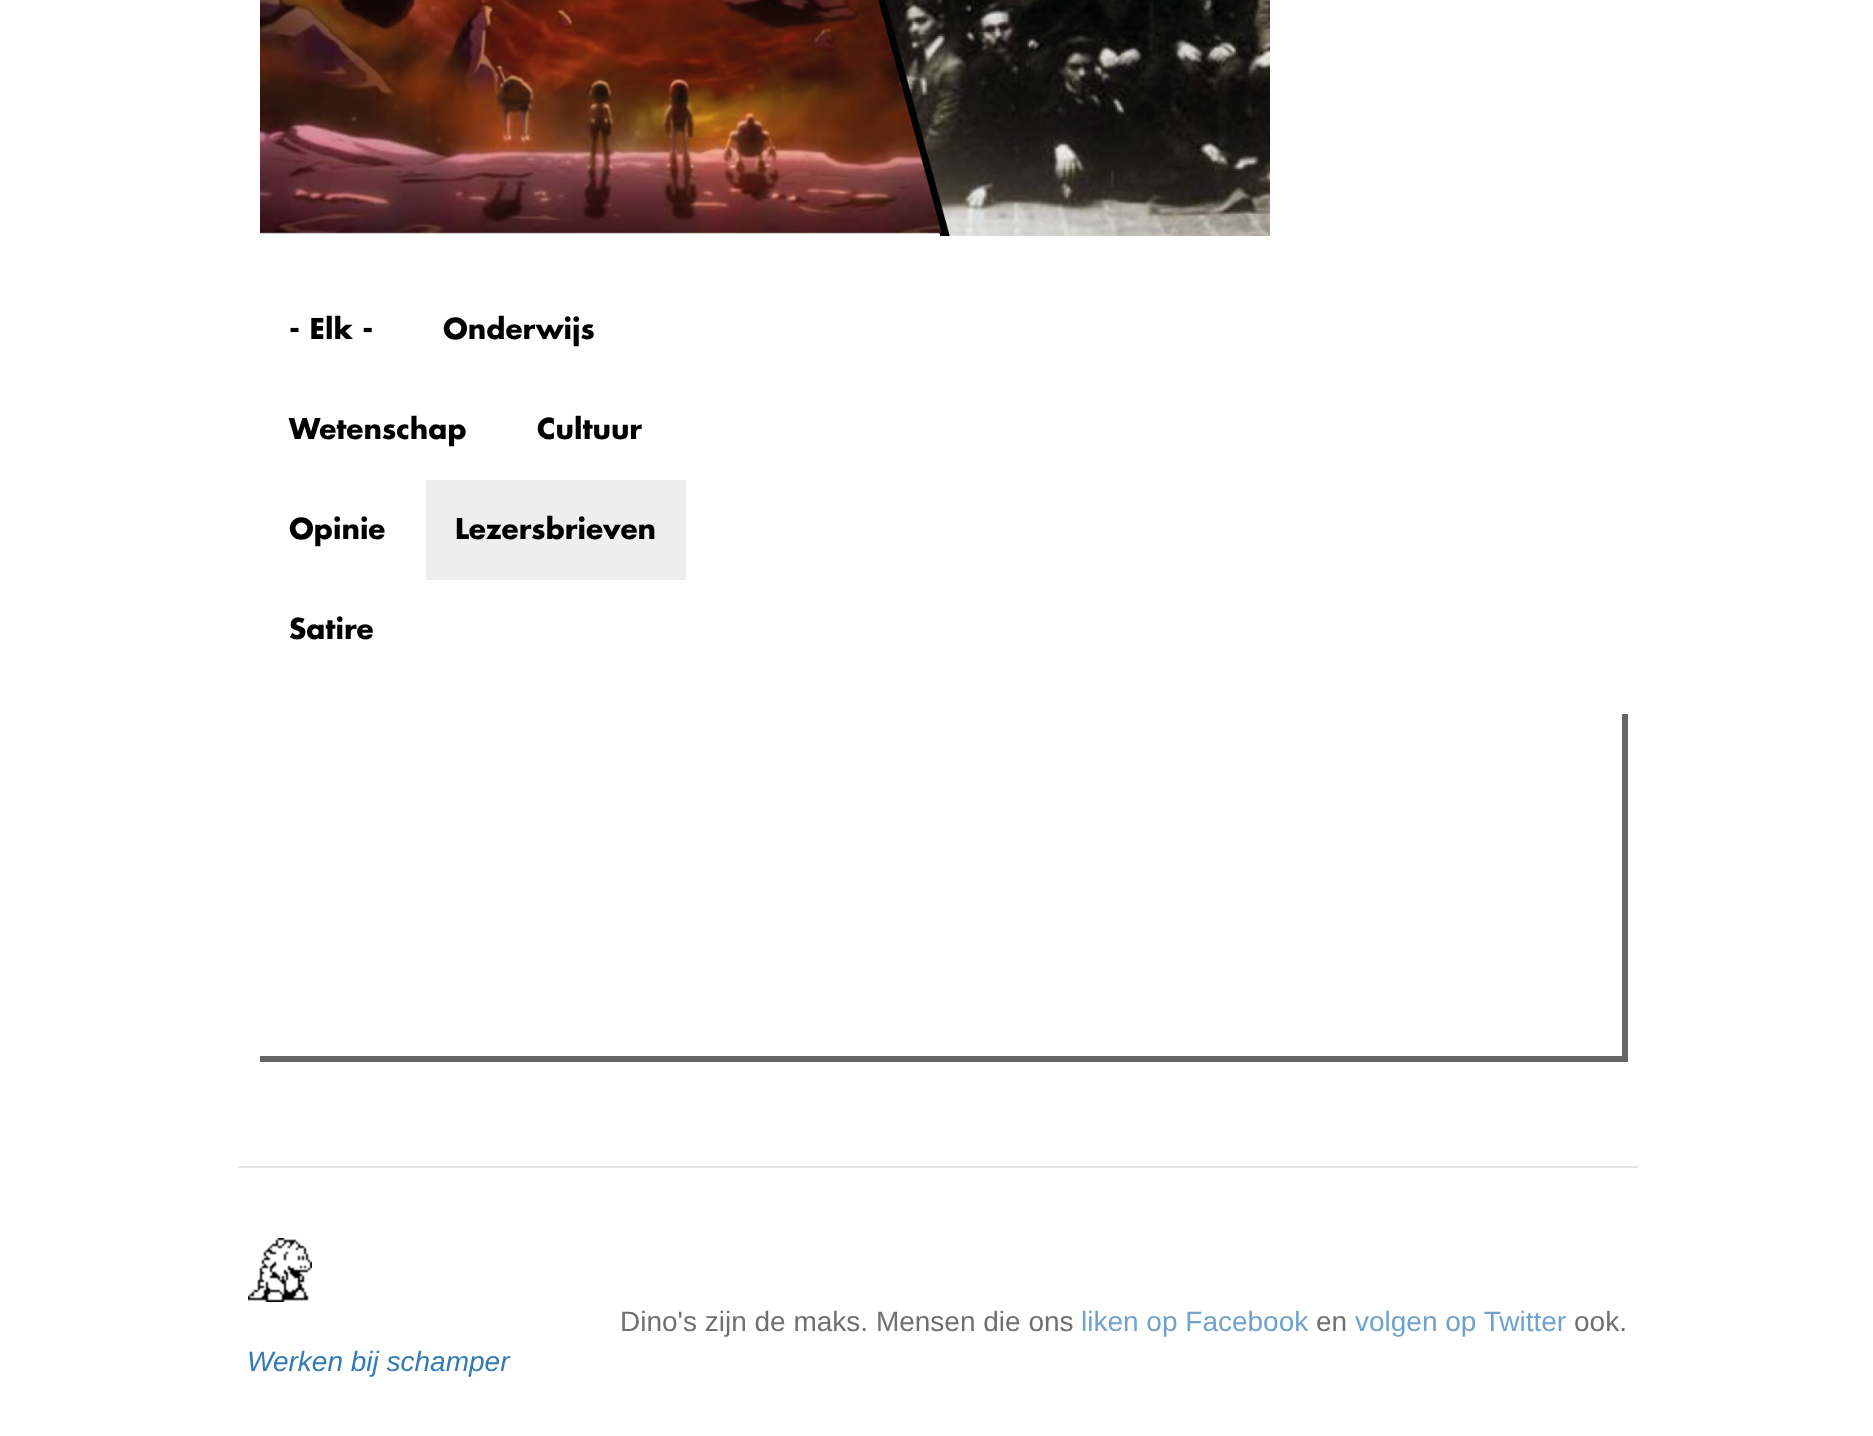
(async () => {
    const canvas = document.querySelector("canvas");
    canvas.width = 1873;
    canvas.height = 1436;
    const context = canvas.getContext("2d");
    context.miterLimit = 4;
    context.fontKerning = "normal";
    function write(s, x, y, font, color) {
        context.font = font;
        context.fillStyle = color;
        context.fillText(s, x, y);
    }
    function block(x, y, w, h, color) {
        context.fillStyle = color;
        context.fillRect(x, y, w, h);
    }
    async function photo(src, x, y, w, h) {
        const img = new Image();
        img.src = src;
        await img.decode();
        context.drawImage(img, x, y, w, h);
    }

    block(0, 0, 1873, 1436, "rgb(255, 255, 255)");
    await photo("media/1.png", 260, 0, 1010, 236);
    write("- Elk -", 289, 339, "bold 28px Futura", "rgb(0, 0, 0)");
    write("Onderwijs", 443, 339, "bold 28px Futura", "rgb(0, 0, 0)");
    write("Wetenschap", 289, 439, "bold 28px Futura", "rgb(0, 0, 0)");
    write("Cultuur", 537, 439, "bold 28px Futura", "rgb(0, 0, 0)");
    write("Opinie", 289, 539, "bold 28px Futura", "rgb(0, 0, 0)");
    block(426, 480, 260, 100, "rgb(238, 238, 238)");
    write("Lezersbrieven", 455, 539, "bold 28px Futura", "rgb(0, 0, 0)");
    write("Satire", 289, 639, "bold 28px Futura", "rgb(0, 0, 0)");
    context.fillStyle = "rgb(102, 102, 102)";
    context.beginPath();
    context.moveTo(260, 1056);
    context.lineTo(260, 1062);
    context.lineTo(1628, 1062);
    context.lineTo(1628, 714);
    context.lineTo(1622, 714);
    context.lineTo(1622, 1056);
    context.closePath();
    context.fill();
    block(238, 1166, 1400, 2, "rgb(229, 229, 229)");
    await photo("media/2.png", 248, 1238, 64, 64);
    write("Dino's zijn de maks. Mensen die ons", 620, 1331, "28px Liberation Sans", "rgb(112, 112, 112)");
    write("liken op Facebook", 1081, 1331, "28px Liberation Sans", "rgb(112, 162, 205)");
    write("en", 1316, 1331, "28px Liberation Sans", "rgb(112, 112, 112)");
    write("volgen op Twitter", 1355, 1331, "28px Liberation Sans", "rgb(112, 162, 205)");
    write("ook.", 1574, 1331, "28px Liberation Sans", "rgb(112, 112, 112)");
    write("Werken bij schamper", 247, 1371, "italic 28px Liberation Sans", "rgb(51, 122, 183)");
})();
